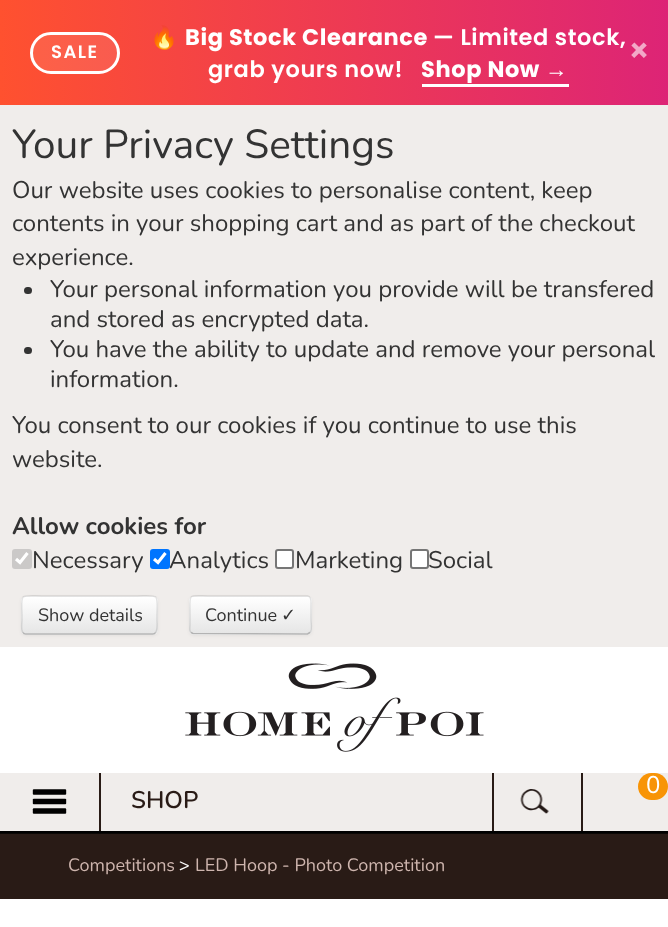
(async () => {
    const canvas = document.querySelector("canvas");
    canvas.width = 668;
    canvas.height = 927;
    const context = canvas.getContext("2d");
    context.miterLimit = 4;
    context.fontKerning = "normal";
    function write(s, x, y, font, color) {
        context.font = font;
        context.fillStyle = color;
        context.fillText(s, x, y);
    }
    function block(x, y, w, h, color) {
        context.fillStyle = color;
        context.fillRect(x, y, w, h);
    }
    function card(x, y, w, h, r, color) {
        context.fillStyle = color;
        context.beginPath();
        context.roundRect(x, y, w, h, r);
        context.fill();
    }
    async function photo(src, x, y, w, h) {
        const img = new Image();
        img.src = src;
        await img.decode();
        context.drawImage(img, x, y, w, h);
    }
    let gradient;

    block(0, 0, 668, 927, "rgb(255, 255, 255)");
    gradient = context.createLinearGradient(0, 53, 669, 52);
    gradient.addColorStop(0, "rgb(255, 81, 47)");
    gradient.addColorStop(1, "rgb(221, 36, 118)");
    context.fillStyle = gradient;
    context.fillRect(0, 0, 668, 105);
    context.fillStyle = "rgba(255, 255, 255, 0.1)";
    context.beginPath();
    context.roundRect(31.5, 33.5, 87, 39, 19.5);
    context.fill();
    context.strokeStyle = "rgb(255, 255, 255)";
    context.lineWidth = 3;
    context.stroke();
    context.letterSpacing = "1.5px";
    write("SALE", 51, 58, "600 18px Poppins", "rgb(255, 255, 255)");
    context.letterSpacing = "0.6px";
    write("🔥", 150, 45, "bold 22.5px Noto Color Emoji", "rgb(255, 255, 255)");
    write("Big Stock Clearance", 185, 45, "bold 22.5px Poppins", "rgb(255, 255, 255)");
    write("— Limited stock,", 433, 45, "600 22.5px Poppins", "rgb(255, 255, 255)");
    write("grab yours now!", 208, 77, "600 22.5px Poppins", "rgb(255, 255, 255)");
    write("Shop Now", 421, 77, "bold 22.5px Poppins", "rgb(255, 255, 255)");
    write("→", 545, 77, "bold 22.5px Liberation Sans", "rgb(255, 255, 255)");
    block(422, 84, 147, 3, "rgb(255, 255, 255)");
    write("×", 628, 62, "600 33px Poppins", "rgb(242, 168, 199)");
    block(0, 105, 668, 542, "rgb(240, 237, 235)");
    context.letterSpacing = "0px";
    write("Your Privacy Settings", 12, 158, "40.5px Nunito", "rgb(51, 51, 51)");
    write("Our website uses cookies to personalise content, keep", 12, 198, "24px Nunito", "rgb(51, 51, 51)");
    write("contents in your shopping cart and as part of the checkout", 12, 231, "24px Nunito", "rgb(51, 51, 51)");
    write("experience.", 12, 265, "24px Nunito", "rgb(51, 51, 51)");
    card(24, 287, 8, 7, 3.5, "rgb(51, 51, 51)");
    write("Your personal information you provide will be transfered", 50, 297, "24px Nunito", "rgb(51, 51, 51)");
    write("and stored as encrypted data.", 50, 327, "24px Nunito", "rgb(51, 51, 51)");
    card(24, 347, 8, 7, 3.5, "rgb(51, 51, 51)");
    write("You have the ability to update and remove your personal", 50, 357, "24px Nunito", "rgb(51, 51, 51)");
    write("information.", 50, 387, "24px Nunito", "rgb(51, 51, 51)");
    write("You consent to our cookies if you continue to use this", 12, 433, "24px Nunito", "rgb(51, 51, 51)");
    write("website.", 12, 467, "24px Nunito", "rgb(51, 51, 51)");
    write("Allow cookies for", 12, 534, "bold 24px Nunito", "rgb(51, 51, 51)");
    card(12, 549, 20, 20, 3, "rgb(203, 201, 200)");
    context.beginPath();
    context.moveTo(16, 559);
    context.lineTo(20, 562.5);
    context.lineTo(27.5, 553);
    context.lineWidth = 3.1;
    context.stroke();
    write("Necessary", 32, 568, "24px Nunito", "rgb(51, 51, 51)");
    card(150, 549, 20, 20, 3, "rgb(0, 117, 255)");
    context.beginPath();
    context.moveTo(154, 559);
    context.lineTo(158, 562.5);
    context.lineTo(165.5, 553);
    context.stroke();
    write("Analytics", 169, 568, "24px Nunito", "rgb(51, 51, 51)");
    context.fillStyle = "rgb(255, 255, 255)";
    context.beginPath();
    context.roundRect(276, 550, 17, 18, 2);
    context.fill();
    context.strokeStyle = "rgb(118, 118, 118)";
    context.lineWidth = 2;
    context.stroke();
    write("Marketing", 295, 568, "24px Nunito", "rgb(51, 51, 51)");
    context.fillStyle = "rgb(255, 255, 255)";
    context.beginPath();
    context.roundRect(411, 550, 17, 18, 2);
    context.fill();
    context.stroke();
    write("Social", 428, 568, "24px Nunito", "rgb(51, 51, 51)");
    context.fillStyle = "rgba(0, 0, 0, 0.05)";
    context.filter = "blur(1.5px)";
    context.beginPath();
    context.roundRect(21, 597, 137, 39, 5);
    context.fill();
    context.filter = "none";
    card(21, 596, 137, 39, 5, "rgb(245, 245, 245)");
    context.save();
    context.beginPath();
    context.roundRect(21, 596, 137, 39, 5);
    context.clip();
    gradient = context.createLinearGradient(89, 597, 89, 633);
    gradient.addColorStop(0, "rgb(255, 255, 255)");
    gradient.addColorStop(1, "rgb(230, 230, 230)");
    context.fillStyle = gradient;
    context.fillRect(21, 597, 137, 36);
    context.restore();
    context.beginPath();
    context.moveTo(155.5, 632.5);
    context.bezierCurveTo(155, 633.5, 154, 634, 153, 634);
    context.lineTo(25.5, 634);
    context.bezierCurveTo(24.5, 634, 23.5, 633.5, 23, 632.5);
    context.strokeStyle = "rgb(179, 179, 179)";
    context.lineWidth = 1.5;
    context.stroke();
    context.beginPath();
    context.moveTo(23, 632.5);
    context.bezierCurveTo(20.5, 630, 22, 622.5, 22, 620);
    context.bezierCurveTo(22, 591, 16.5, 596, 47, 596);
    context.lineTo(132, 596);
    context.bezierCurveTo(162, 596, 157, 591, 157, 620);
    context.bezierCurveTo(157, 622.5, 158, 630, 155.5, 632.5);
    context.strokeStyle = "rgba(0, 0, 0, 0.1)";
    context.stroke();
    write("Show details", 38, 621, "18px Nunito", "rgb(51, 51, 51)");
    context.fillStyle = "rgba(0, 0, 0, 0.05)";
    context.filter = "blur(1.5px)";
    context.beginPath();
    context.roundRect(189, 597, 123, 39, 5);
    context.fill();
    context.filter = "none";
    card(189, 596, 123, 39, 5, "rgb(245, 245, 245)");
    context.save();
    context.beginPath();
    context.roundRect(189, 596, 123, 39, 5);
    context.clip();
    gradient = context.createLinearGradient(251, 597, 251, 633);
    gradient.addColorStop(0, "rgb(255, 255, 255)");
    gradient.addColorStop(1, "rgb(230, 230, 230)");
    context.fillStyle = gradient;
    context.fillRect(189, 597, 123, 36);
    context.restore();
    context.fillStyle = "rgba(255, 255, 255, 0.2)";
    context.beginPath();
    context.moveTo(194, 598);
    context.lineTo(289, 598);
    context.bezierCurveTo(312, 598, 310, 593, 310, 612);
    context.lineTo(310, 632);
    context.bezierCurveTo(311, 632, 311, 631, 311, 630);
    context.lineTo(311, 600);
    context.bezierCurveTo(311, 598, 310, 597, 308, 597);
    context.lineTo(194, 597);
    context.bezierCurveTo(193, 597, 191, 598, 191, 599);
    context.closePath();
    context.fill();
    context.beginPath();
    context.moveTo(310, 632.5);
    context.lineTo(307.5, 634);
    context.lineTo(193, 633.5);
    context.lineTo(191, 632.5);
    context.strokeStyle = "rgb(179, 179, 179)";
    context.stroke();
    context.beginPath();
    context.moveTo(191, 632.5);
    context.bezierCurveTo(189, 631, 190, 627, 190, 625);
    context.lineTo(190, 615);
    context.bezierCurveTo(190, 591.5, 186.5, 596, 212.5, 596);
    context.lineTo(307.5, 596);
    context.bezierCurveTo(312, 596.5, 311, 602, 311, 605);
    context.lineTo(311, 620);
    context.bezierCurveTo(311, 622.5, 312.5, 630, 310, 632.5);
    context.strokeStyle = "rgba(0, 0, 0, 0.1)";
    context.stroke();
    write("Continue", 205, 621, "18px Nunito", "rgb(51, 51, 51)");
    write("✓", 281, 621, "18px DejaVu Sans", "rgb(51, 51, 51)");
    await photo("media/1.png", 185, 663, 299, 89);
    block(0, 773, 668, 58, "rgb(240, 237, 235)");
    block(0, 831, 668, 2, "rgb(0, 0, 0)");
    block(99, 773, 2, 58, "rgb(41, 27, 22)");
    block(492, 773, 2, 58, "rgb(41, 27, 22)");
    block(581, 773, 2, 58, "rgb(41, 27, 22)");
    card(638, 773, 30, 27, 13.5, "rgb(248, 148, 6)");
    write("0", 646, 793, "24px Nunito", "rgb(255, 255, 255)");
    await photo("media/2.png", 32, 789, 35, 25);
    write("SHOP", 131, 808, "600 24px Nunito", "rgb(41, 27, 22)");
    await photo("media/3.png", 520, 789, 29, 25);
    block(0, 834, 668, 65, "rgb(41, 27, 22)");
    block(0, 833, 668, 1, "rgb(10, 7, 5)");
    write("Competitions", 68, 871, "18px Nunito", "rgb(206, 181, 174)");
    write(">", 179, 871, "18px Nunito", "rgb(255, 255, 255)");
    write("LED Hoop - Photo Competition", 195, 871, "18px Nunito", "rgb(206, 181, 174)");
})();
